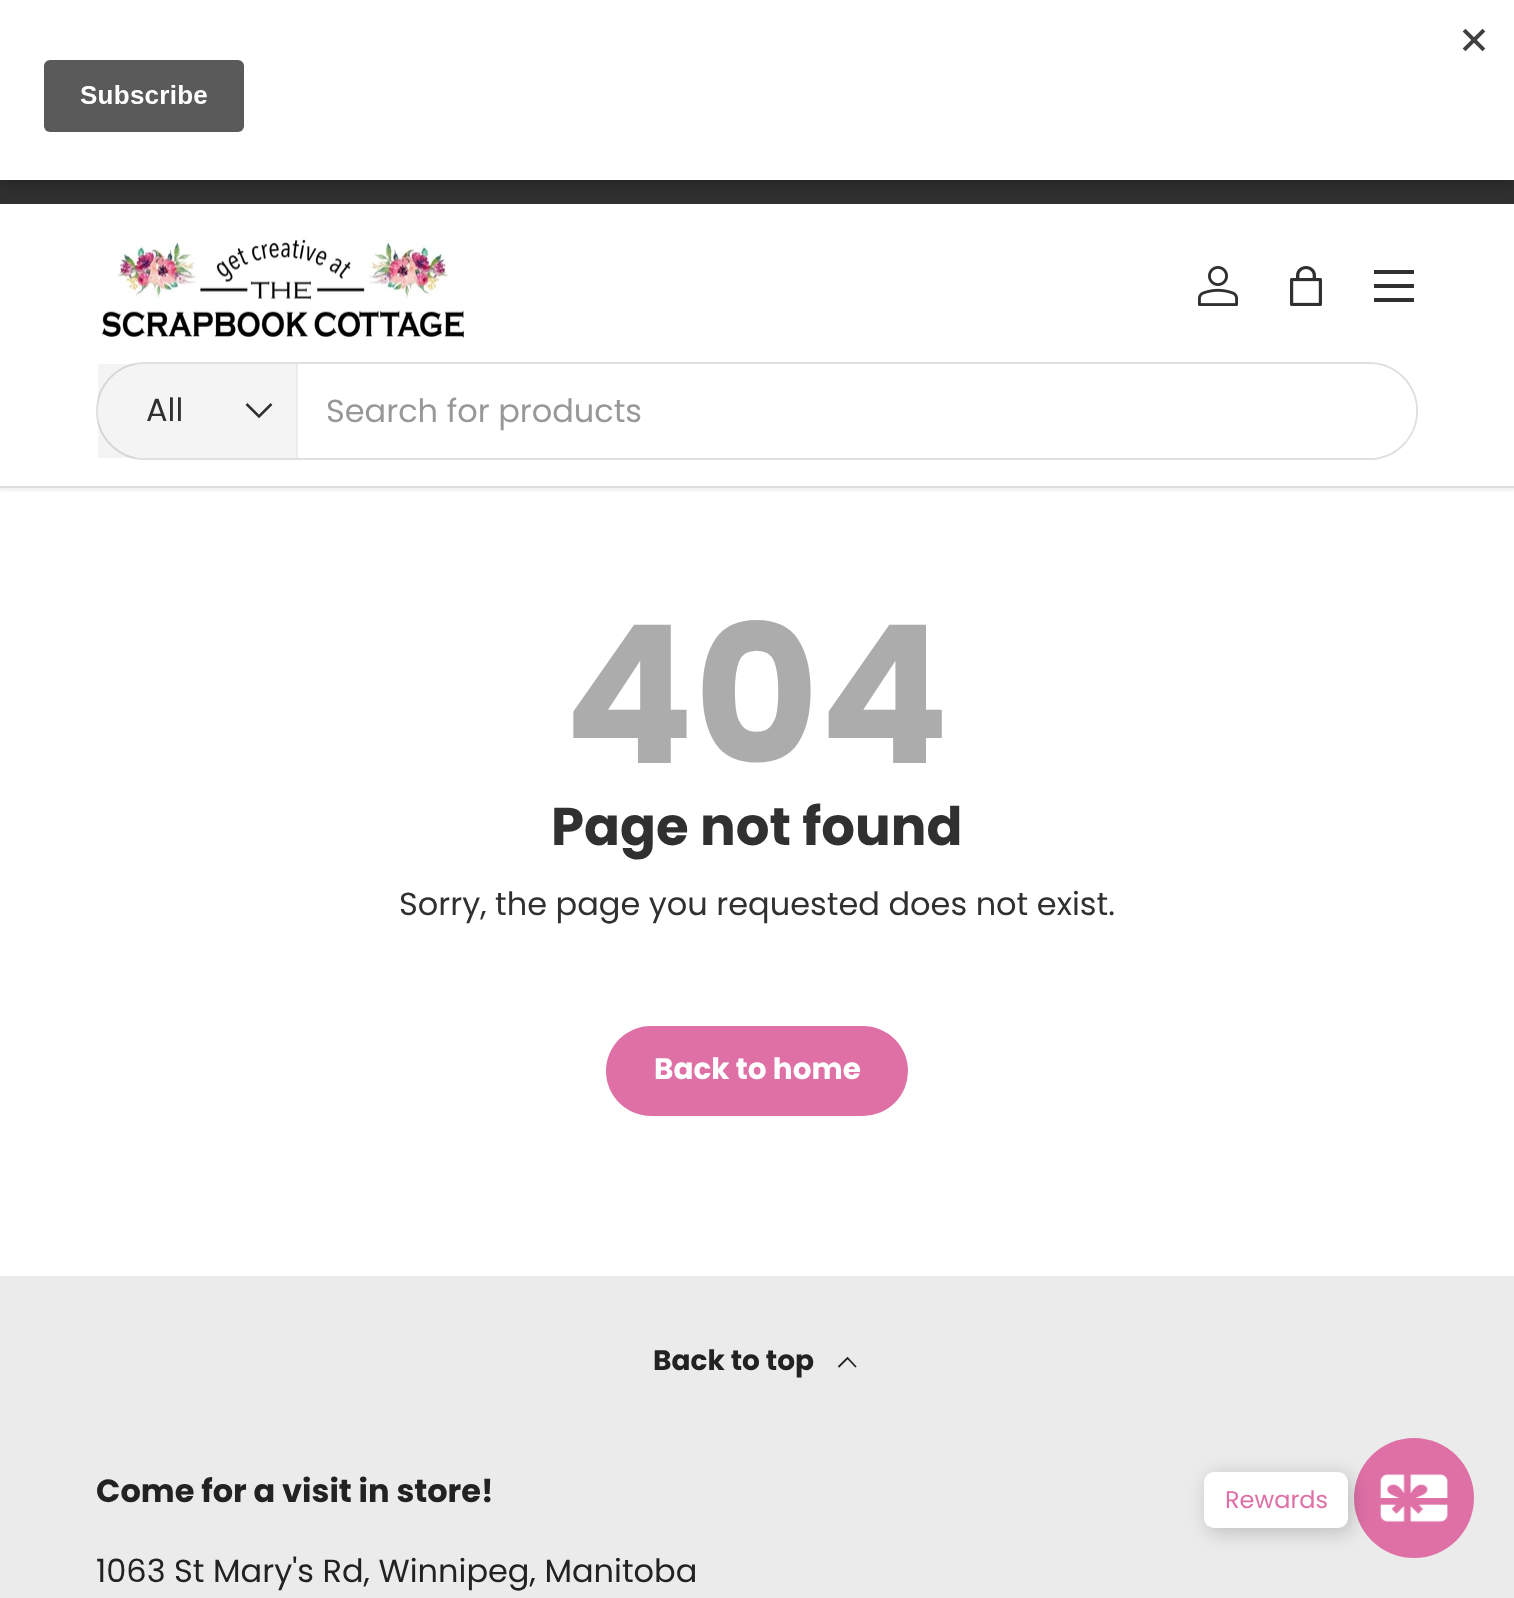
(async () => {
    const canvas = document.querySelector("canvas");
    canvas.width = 1514;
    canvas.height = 1598;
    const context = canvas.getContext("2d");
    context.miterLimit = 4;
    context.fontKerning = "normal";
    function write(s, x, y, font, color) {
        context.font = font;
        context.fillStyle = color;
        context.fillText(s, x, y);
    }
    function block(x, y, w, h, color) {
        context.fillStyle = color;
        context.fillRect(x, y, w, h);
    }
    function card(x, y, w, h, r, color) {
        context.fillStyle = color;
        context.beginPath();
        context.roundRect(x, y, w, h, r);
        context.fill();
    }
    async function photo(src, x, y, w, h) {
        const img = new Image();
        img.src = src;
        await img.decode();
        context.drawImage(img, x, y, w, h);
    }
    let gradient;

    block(0, 0, 1514, 1598, "rgb(255, 255, 255)");
    context.save();
    context.beginPath();
    context.rect(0, 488, 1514, 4);
    context.clip();
    context.fillStyle = "rgba(0, 0, 0, 0.08)";
    context.filter = "blur(3px)";
    context.beginPath();
    context.rect(-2, 202, 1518, 288);
    context.fill();
    context.filter = "none";
    context.restore();
    block(0, 180, 1514, 24, "rgb(48, 48, 48)");
    context.fillStyle = "rgba(0, 0, 0, 0.2)";
    context.filter = "blur(6px)";
    context.beginPath();
    context.rect(0, 6, 1514, 180);
    context.fill();
    context.filter = "none";
    block(0, 0, 1514, 180, "rgb(255, 255, 255)");
    await photo("media/1.png", 44, 28, 1442, 104);
    await photo("media/2.png", 101, 236, 363, 102);
    await photo("media/3.png", 1198, 266, 40, 40);
    await photo("media/4.png", 1290, 266, 32, 40);
    block(1374, 270, 40, 4, "rgb(48, 48, 48)");
    block(1374, 298, 40, 4, "rgb(48, 48, 48)");
    block(1374, 284, 40, 4, "rgb(48, 48, 48)");
    context.beginPath();
    context.roundRect(97, 363, 1320, 96, 48);
    context.strokeStyle = "rgb(224, 224, 224)";
    context.lineWidth = 2;
    context.stroke();
    card(98, 364, 1318, 94, 47, "rgb(255, 255, 255)");
    block(98, 364, 198, 94, "rgba(48, 48, 48, 0.05)");
    block(296, 364, 2, 94, "rgb(235, 235, 235)");
    write("All", 146, 421, "32px Poppins", "rgb(48, 48, 48)");
    context.beginPath();
    context.moveTo(271.5, 404);
    context.lineTo(259, 416.5);
    context.lineTo(246.5, 404);
    context.strokeStyle = "rgb(48, 48, 48)";
    context.lineWidth = 2.5;
    context.stroke();
    write("Search for products", 326, 422, "32px Poppins", "rgb(152, 152, 152)");
    block(0, 486, 1514, 2, "rgb(222, 222, 222)");
    write("404", 564, 763, "bold 192px Poppins", "rgb(172, 172, 172)");
    write("Page not found", 551, 845, "bold 53px Poppins", "rgb(48, 48, 48)");
    write("Sorry, the page you requested does not exist.", 399, 915, "32px Poppins", "rgb(48, 48, 48)");
    gradient = context.createLinearGradient(18, 962, 892, 1180);
    gradient.addColorStop(0.6, "rgb(230, 145, 187)");
    gradient.addColorStop(0.6, "rgb(222, 112, 166)");
    gradient.addColorStop(1, "rgb(222, 112, 166)");
    context.fillStyle = gradient;
    context.beginPath();
    context.roundRect(606, 1026, 302, 90, 45);
    context.fill();
    write("Back to home", 654, 1079, "bold 29.5px Poppins", "rgb(255, 255, 255)");
    block(0, 1276, 1514, 322, "rgb(235, 235, 235)");
    write("Back to top", 653, 1370, "bold 28px Poppins", "rgb(34, 34, 34)");
    context.beginPath();
    context.moveTo(838.5, 1367);
    context.lineTo(847.5, 1358);
    context.lineTo(856, 1367);
    context.strokeStyle = "rgb(34, 34, 34)";
    context.lineWidth = 1.8;
    context.stroke();
    write("Come for a visit in store!", 96, 1502, "bold 32px Poppins", "rgb(34, 34, 34)");
    write("1063 St Mary's Rd, Winnipeg, Manitoba", 96, 1582, "32px Poppins", "rgb(34, 34, 34)");
    context.fillStyle = "rgb(222, 112, 166)";
    context.beginPath();
    context.arc(1414, 1498, 60, 0, Math.PI * 2);
    context.fill();
    await photo("media/5.png", 1380, 1474, 68, 48);
    context.fillStyle = "rgba(0, 0, 0, 0.2)";
    context.filter = "blur(10px)";
    context.beginPath();
    context.roundRect(1208, 1476, 144, 56, 10);
    context.fill();
    context.filter = "none";
    card(1204, 1472, 144, 56, 10, "rgb(255, 255, 255)");
    write("Rewards", 1225, 1508, "24px Poppins", "rgb(222, 112, 166)");
})();
